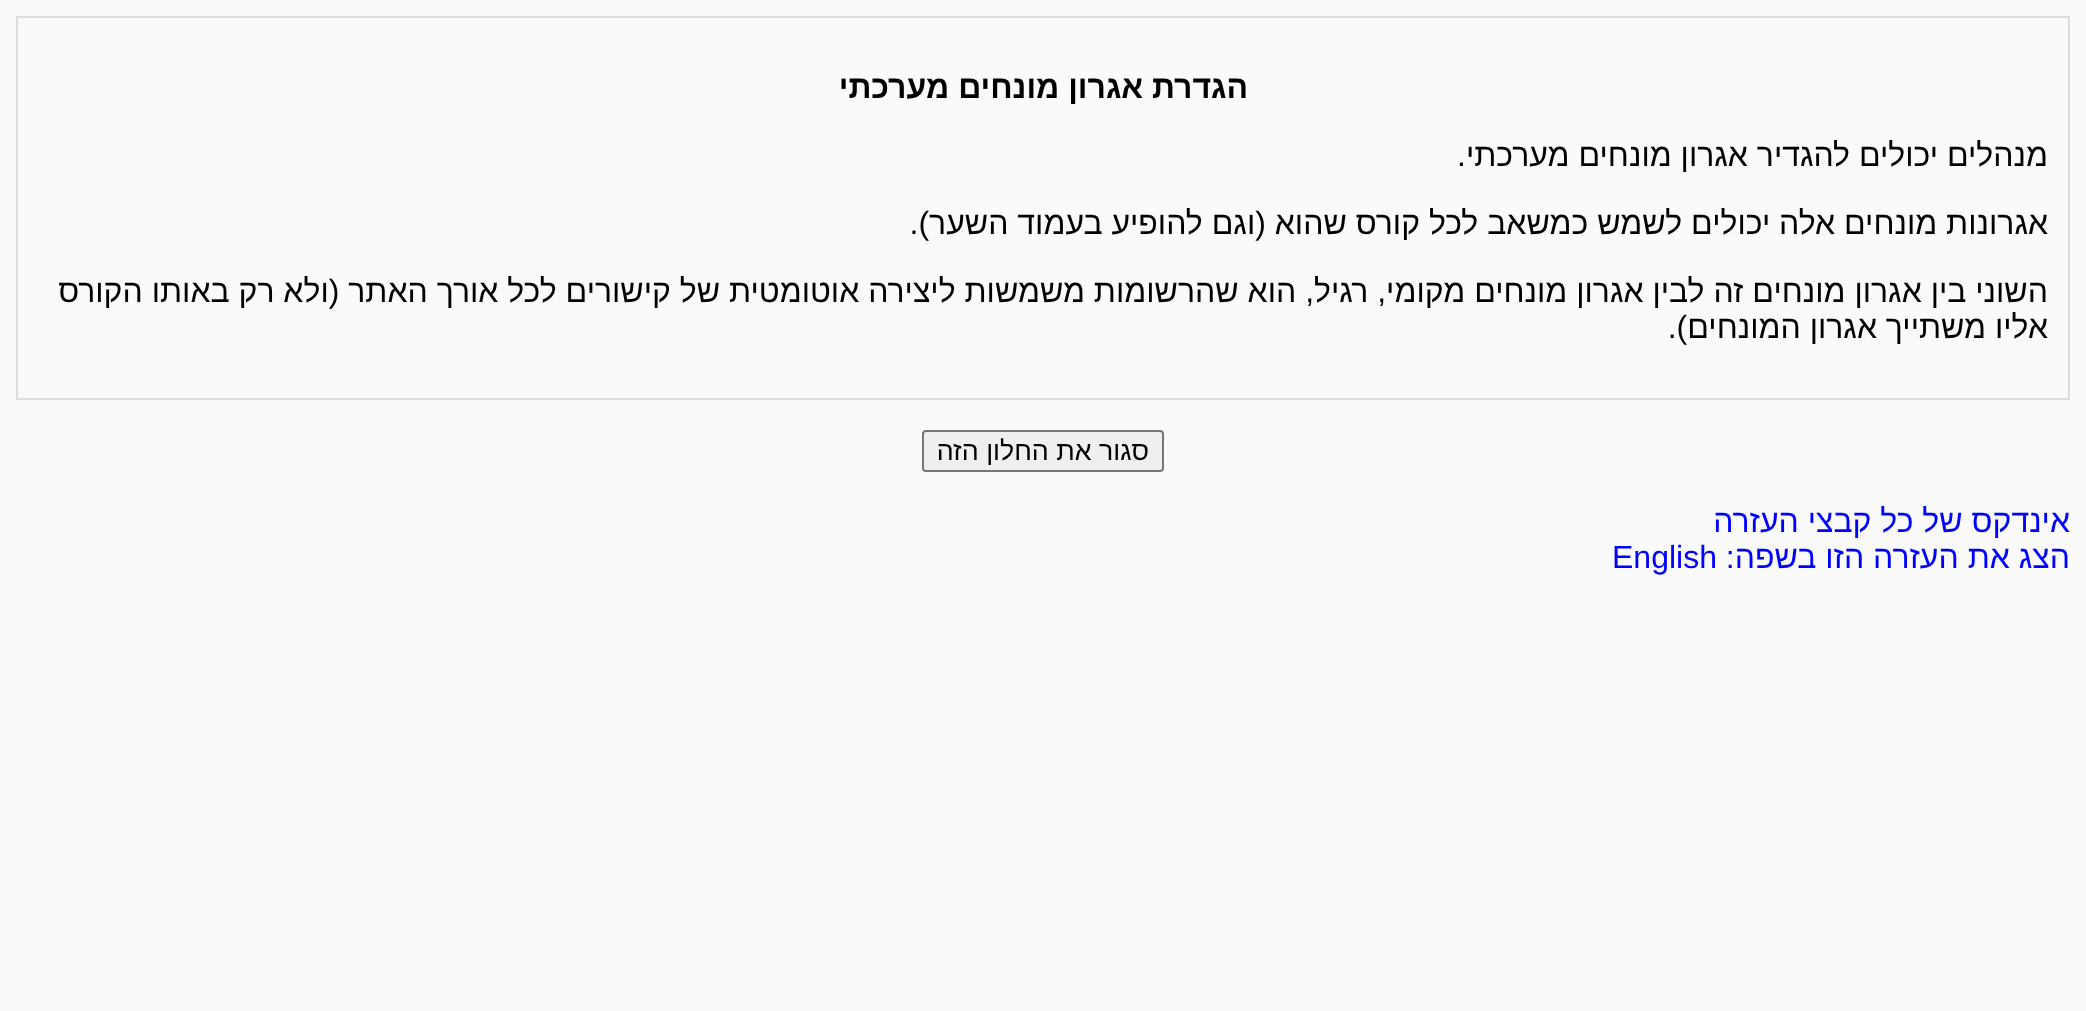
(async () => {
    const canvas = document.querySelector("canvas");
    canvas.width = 2086;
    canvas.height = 1011;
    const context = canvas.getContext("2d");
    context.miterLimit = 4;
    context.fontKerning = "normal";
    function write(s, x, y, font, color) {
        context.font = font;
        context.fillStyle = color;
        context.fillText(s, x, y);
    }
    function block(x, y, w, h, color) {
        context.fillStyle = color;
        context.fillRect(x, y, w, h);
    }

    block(0, 0, 2086, 1011, "rgb(250, 250, 250)");
    context.strokeStyle = "rgb(221, 221, 221)";
    context.lineWidth = 2;
    context.strokeRect(17, 17, 2052, 382);
    context.direction = "rtl";
    write("הגדרת אגרון מונחים מערכתי", 1248, 98, "bold 32px Liberation Sans", "rgb(0, 0, 0)");
    write("מנהלים יכולים להגדיר אגרון מונחים מערכתי.", 2048, 166, "32px Liberation Sans", "rgb(0, 0, 0)");
    write("אגרונות מונחים אלה יכולים לשמש כמשאב לכל קורס שהוא (וגם להופיע בעמוד השער).", 2048, 234, "32px Liberation Sans", "rgb(0, 0, 0)");
    write("השוני בין אגרון מונחים זה לבין אגרון מונחים מקומי, רגיל, הוא שהרשומות משמשות ליצירה אוטומטית של קישורים לכל אורך האתר (ולא רק באותו הקורס", 2048, 302, "32px Liberation Sans", "rgb(0, 0, 0)");
    write("אליו משתייך אגרון המונחים).", 2048, 338, "32px Liberation Sans", "rgb(0, 0, 0)");
    context.fillStyle = "rgb(239, 239, 239)";
    context.beginPath();
    context.roundRect(923, 431, 240, 40, 3);
    context.fill();
    context.strokeStyle = "rgb(118, 118, 118)";
    context.stroke();
    write("סגור את החלון הזה", 1149, 460, "26.75px Liberation Sans", "rgb(0, 0, 0)");
    write("אינדקס של כל קבצי העזרה", 2070, 532, "32px Liberation Sans", "rgb(0, 0, 255)");
    write("הצג את העזרה הזו בשפה:", 2070, 568, "32px Liberation Sans", "rgb(0, 0, 255)");
    context.direction = "ltr";
    write("English", 1612, 568, "32px Liberation Sans", "rgb(0, 0, 255)");
})();
